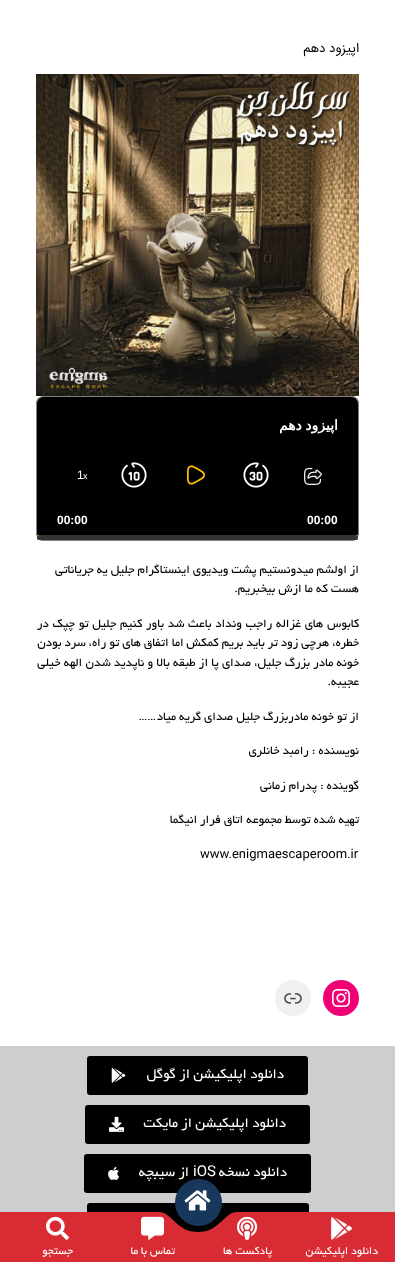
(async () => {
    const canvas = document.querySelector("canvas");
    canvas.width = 395;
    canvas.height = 1262;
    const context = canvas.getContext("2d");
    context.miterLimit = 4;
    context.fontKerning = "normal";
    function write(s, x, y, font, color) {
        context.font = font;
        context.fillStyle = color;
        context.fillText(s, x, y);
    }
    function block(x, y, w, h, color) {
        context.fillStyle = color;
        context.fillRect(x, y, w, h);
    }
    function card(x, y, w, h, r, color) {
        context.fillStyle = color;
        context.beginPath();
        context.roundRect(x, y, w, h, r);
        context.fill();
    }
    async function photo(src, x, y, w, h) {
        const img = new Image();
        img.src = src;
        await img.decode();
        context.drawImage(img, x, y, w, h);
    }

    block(0, 0, 395, 1262, "rgb(255, 255, 255)");
    context.direction = "rtl";
    write("اپیزود دهم", 359, 52, "13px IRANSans", "rgb(0, 0, 0)");
    await photo("media/1.png", 36, 74, 323, 322);
    card(36, 396, 323, 145, 8, "rgb(0, 0, 0)");
    context.beginPath();
    context.roundRect(36.5, 396.5, 322, 144, 7.5);
    context.strokeStyle = "rgba(255, 255, 255, 0.5)";
    context.stroke();
    context.wordSpacing = "-1px";
    write("اپیزود دهم", 338, 430, "bold 14px DejaVu Sans", "rgb(255, 255, 255)");
    await photo("media/2.png", 304, 467, 18, 18);
    await photo("media/3.png", 243, 462, 26, 26);
    await photo("media/4.png", 186, 465, 19, 20);
    await photo("media/5.png", 121, 462, 26, 26);
    context.wordSpacing = "0px";
    context.direction = "ltr";
    write("x", 83, 479, "9px Liberation Sans", "rgb(255, 255, 255)");
    write("1", 77, 479, "12px Liberation Sans", "rgb(255, 255, 255)");
    write("00:00", 307, 524, "bold 12px Liberation Sans", "rgb(255, 255, 255)");
    write("00:00", 57, 524, "bold 12px Liberation Sans", "rgb(255, 255, 255)");
    block(37, 535, 321, 5, "rgb(252, 185, 0)");
    card(37, 535, 321, 5, 2.5, "rgb(51, 51, 51)");
    context.direction = "rtl";
    write("از اولشم میدونستیم پشت ویدیوی اینستاگرام جلیل یه جریاناتی", 359, 573, "13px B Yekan", "rgb(0, 0, 0)");
    write("هست که ما ازش بیخبریم.", 359, 592, "13px B Yekan", "rgb(0, 0, 0)");
    context.wordSpacing = "0.75px";
    write("کابوس های غزاله راجب ونداد باعث شد باور کنیم جلیل تو چپک در", 359, 627, "13px B Yekan", "rgb(0, 0, 0)");
    context.wordSpacing = "0px";
    write("خطره، هرچی زود تر باید بریم کمکش اما اتفاق های تو راه، سرد بودن", 359, 646, "13px B Yekan", "rgb(0, 0, 0)");
    context.wordSpacing = "0.25px";
    write("خونه مادر بزرگ جلیل، صدای پا از طبقه بالا و ناپدید شدن الهه خیلی", 359, 666, "13px B Yekan", "rgb(0, 0, 0)");
    context.wordSpacing = "0px";
    write("عجیبه.", 359, 685, "13px B Yekan", "rgb(0, 0, 0)");
    write("از تو خونه مادربزرگ جلیل صدای گریه میاد", 359, 720, "13px B Yekan", "rgb(0, 0, 0)");
    write("……", 156, 720, "13px Roboto", "rgb(0, 0, 0)");
    write("نویسنده : رامبد خانلری", 359, 754, "13px B Yekan", "rgb(0, 0, 0)");
    write("گوینده : پدرام زمانی", 359, 789, "13px B Yekan", "rgb(0, 0, 0)");
    write("تهیه شده توسط مجموعه اتاق فرار انیگما", 359, 823, "13px B Yekan", "rgb(0, 0, 0)");
    context.direction = "ltr";
    write("www.enigmaescaperoom.ir", 200, 858, "13px Roboto", "rgb(0, 0, 0)");
    context.fillStyle = "rgb(240, 0, 117)";
    context.beginPath();
    context.arc(341, 998, 18, 0, Math.PI * 2);
    context.fill();
    await photo("media/6.png", 332, 989, 18, 18);
    context.fillStyle = "rgb(240, 240, 240)";
    context.beginPath();
    context.arc(293, 998, 18, 0, Math.PI * 2);
    context.fill();
    await photo("media/7.png", 284, 993, 18, 11);
    block(0, 1046, 395, 166, "rgb(206, 206, 206)");
    card(87, 1056, 221, 39, 3, "rgb(0, 0, 0)");
    context.direction = "rtl";
    write("دانلود اپلیکیشن از گوگل", 284, 1078, "15px B Yekan", "rgb(255, 255, 255)");
    await photo("media/8.png", 111, 1068, 15, 15);
    card(85, 1105, 225, 39, 3, "rgb(0, 0, 0)");
    write("دانلود اپلیکیشن از مایکت", 286, 1127, "15px B Yekan", "rgb(255, 255, 255)");
    await photo("media/9.png", 109, 1116, 15, 16);
    card(84, 1154, 227, 39, 3, "rgb(0, 0, 0)");
    write("دانلود نسخه", 287, 1176, "15px B Yekan", "rgb(255, 255, 255)");
    context.direction = "ltr";
    write("iOS", 193, 1176, "15px Roboto", "rgb(255, 255, 255)");
    context.direction = "rtl";
    write("از سیبچه", 189, 1176, "15px B Yekan", "rgb(255, 255, 255)");
    await photo("media/10.png", 108, 1166, 12, 14);
    card(87, 1203, 222, 39, 3, "rgb(0, 0, 0)");
    context.fillStyle = "rgb(216, 43, 52)";
    context.beginPath();
    context.moveTo(-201, 1212);
    context.lineTo(159, 1212);
    context.bezierCurveTo(172, 1212, 176, 1232, 198, 1232);
    context.bezierCurveTo(220, 1232, 224, 1212, 237, 1212);
    context.lineTo(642, 1212);
    context.lineTo(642, 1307);
    context.lineTo(-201, 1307);
    context.closePath();
    context.fill("evenodd");
    context.fillStyle = "rgb(24, 55, 93)";
    context.beginPath();
    context.arc(198.5, 1202.5, 23.5, 0, Math.PI * 2);
    context.fill();
    await photo("media/11.png", 184, 1190, 27, 21);
    await photo("media/12.png", 331, 1217, 21, 23);
    write("دانلود اپلیکیشن", 378, 1254, "12px B Yekan", "rgb(255, 255, 255)");
    await photo("media/13.png", 237, 1216, 21, 24);
    write("پادکست ها", 272, 1254, "12px B Yekan", "rgb(255, 255, 255)");
    await photo("media/14.png", 141, 1216, 23, 24);
    write("تماس با ما", 175, 1254, "12px B Yekan", "rgb(255, 255, 255)");
    await photo("media/15.png", 46, 1216, 23, 24);
    write("جستجو", 73, 1254, "12px B Yekan", "rgb(255, 255, 255)");
})();
